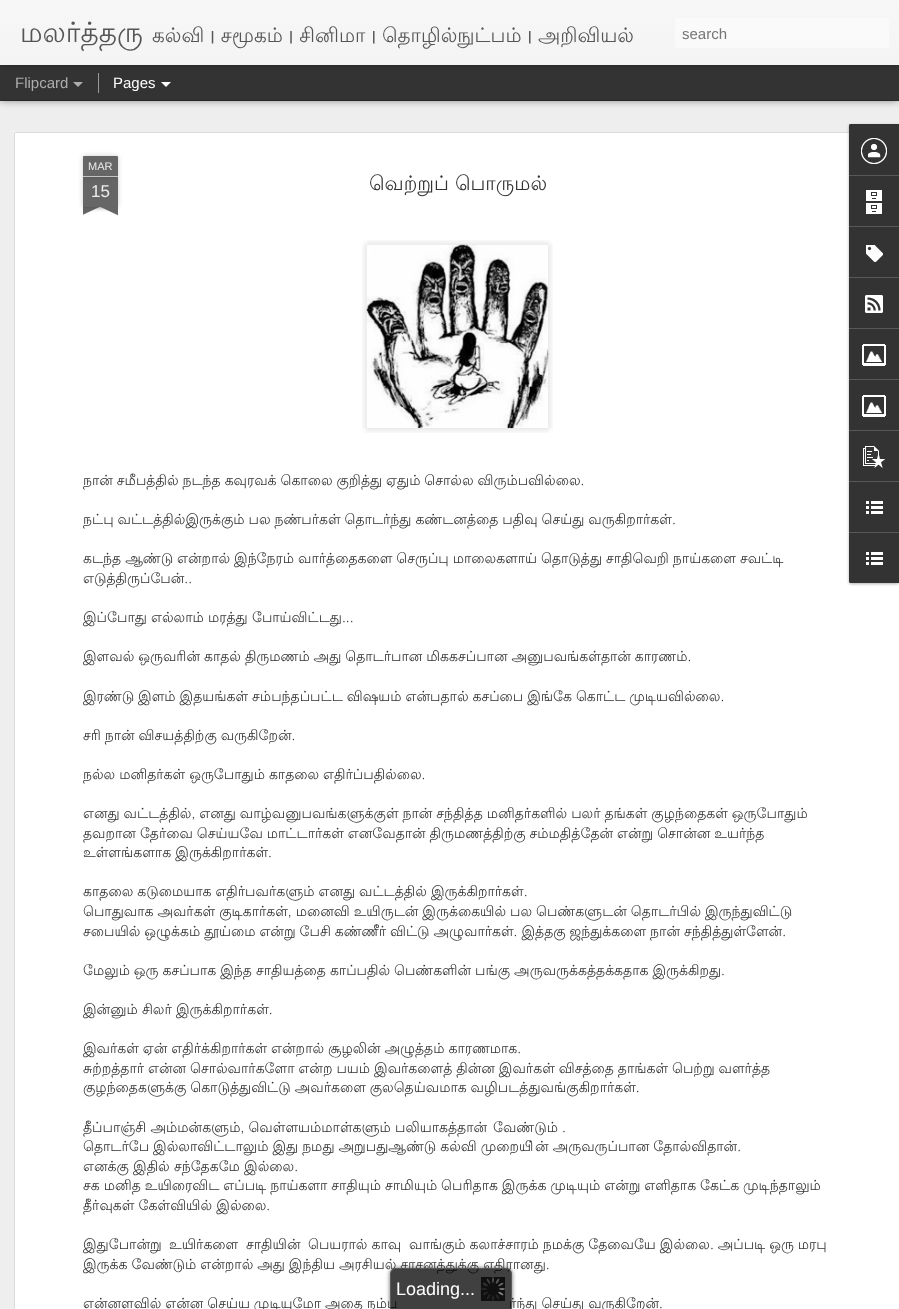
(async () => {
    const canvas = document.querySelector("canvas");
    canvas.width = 899;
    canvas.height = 1309;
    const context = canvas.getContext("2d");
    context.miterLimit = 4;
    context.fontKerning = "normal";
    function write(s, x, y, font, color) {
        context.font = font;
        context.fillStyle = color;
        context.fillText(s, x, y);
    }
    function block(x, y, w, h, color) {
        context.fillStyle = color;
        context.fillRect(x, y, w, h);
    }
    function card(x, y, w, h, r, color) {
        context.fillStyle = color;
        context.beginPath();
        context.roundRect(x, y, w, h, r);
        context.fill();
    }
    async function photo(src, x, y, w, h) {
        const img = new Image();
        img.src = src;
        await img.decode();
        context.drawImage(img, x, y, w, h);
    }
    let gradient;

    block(0, 0, 899, 1309, "rgb(51, 51, 51)");
    block(0, 101, 899, 1208, "rgb(238, 238, 238)");
    context.fillStyle = "rgba(0, 0, 0, 0.5)";
    context.filter = "blur(4px)";
    context.beginPath();
    context.rect(0, 65, 899, 35);
    context.fill();
    context.filter = "none";
    block(0, 65, 899, 35, "rgb(51, 51, 51)");
    block(98, 73, 1, 20, "rgb(153, 153, 153)");
    context.fillStyle = "rgba(0, 0, 0, 0.3)";
    context.filter = "blur(2.5px)";
    context.beginPath();
    context.rect(0, 0, 899, 65);
    context.fill();
    context.filter = "none";
    gradient = context.createLinearGradient(0, 0, 0, 65);
    gradient.addColorStop(0, "rgb(247, 247, 247)");
    gradient.addColorStop(1, "rgb(244, 244, 244)");
    context.fillStyle = gradient;
    context.fillRect(0, 0, 899, 65);
    write("மலர்த்தரு", 20, 42, "28px Lohit Tamil", "rgb(85, 85, 85)");
    context.wordSpacing = "-0.25px";
    write("கல்வி | சமூகம் | சினிமா | தொழில்நுட்பம் | அறிவியல்", 152, 42, "20px Lohit Tamil", "rgb(85, 85, 85)");
    card(675, 18, 214, 30, 3, "rgb(250, 250, 250)");
    context.wordSpacing = "0px";
    write("search", 682, 39, "15px Liberation Sans", "rgb(117, 117, 117)");
    write("Flipcard", 15, 88, "15px Liberation Sans", "rgb(173, 173, 173)");
    context.beginPath();
    context.moveTo(73, 82);
    context.lineTo(83, 82);
    context.lineTo(78, 87);
    context.closePath();
    context.fill();
    write("Pages", 113, 88, "15px Liberation Sans", "rgb(255, 255, 255)");
    context.beginPath();
    context.moveTo(161, 82);
    context.lineTo(171, 82);
    context.lineTo(166, 87);
    context.closePath();
    context.fill();
    block(13, 131, 886, 1178, "rgb(255, 255, 255)");
    await photo("media/1.png", 13, 131, 836, 1178);
    context.fillStyle = "rgba(0, 0, 0, 0.2)";
    context.filter = "blur(2.5px)";
    context.beginPath();
    context.rect(83, 177, 35, 30);
    context.fill();
    context.filter = "none";
    block(83, 177, 35, 30, "rgb(102, 102, 102)");
    context.fillStyle = "rgba(0, 0, 0, 0.2)";
    context.filter = "blur(2.5px)";
    context.beginPath();
    context.roundRect(83, 156, 35, 21, 1);
    context.fill();
    context.filter = "none";
    context.fillStyle = "rgb(102, 102, 102)";
    context.beginPath();
    context.roundRect(83, 156, 35, 21, [1, 1, 0, 0]);
    context.fill();
    block(83, 176, 35, 1, "rgb(194, 194, 194)");
    write("MAR", 88, 170, "11px Liberation Sans", "rgb(238, 238, 238)");
    write("15", 91, 197, "17px Liberation Sans", "rgb(238, 238, 238)");
    context.save();
    context.beginPath();
    context.rect(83, 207, 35, 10);
    context.clip();
    context.fillStyle = "rgba(0, 0, 0, 0.2)";
    context.filter = "blur(2.5px)";
    context.beginPath();
    context.rect(74, 197, 50, 10);
    context.fill();
    context.filter = "none";
    context.restore();
    context.save();
    context.beginPath();
    context.rect(83, 207, 35, 10);
    context.clip();
    context.fillStyle = "rgb(102, 102, 102)";
    context.beginPath();
    context.moveTo(74, 208);
    context.lineTo(119, 187);
    context.lineTo(123, 196);
    context.lineTo(78, 217);
    context.closePath();
    context.fill();
    context.restore();
    context.save();
    context.beginPath();
    context.rect(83, 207, 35, 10);
    context.clip();
    context.fillStyle = "rgba(0, 0, 0, 0.2)";
    context.filter = "blur(2.5px)";
    context.beginPath();
    context.rect(77, 197, 50, 10);
    context.fill();
    context.filter = "none";
    context.restore();
    context.save();
    context.beginPath();
    context.rect(83, 207, 35, 10);
    context.clip();
    context.fillStyle = "rgb(102, 102, 102)";
    context.beginPath();
    context.moveTo(81, 187);
    context.lineTo(126, 208);
    context.lineTo(122, 217);
    context.lineTo(77, 196);
    context.closePath();
    context.fill();
    context.restore();
    write("வெற்றுப் பொருமல்", 369, 190, "20px Lohit Tamil", "rgb(51, 51, 51)");
    await photo("media/2.png", 362, 240, 191, 193);
    await photo("media/3.png", 366, 244, 183, 185);
    context.wordSpacing = "-0.25px";
    write("நான் சமீபத்தில் நடந்த கவுரவக் கொலை குறித்து ஏதும் சொல்ல விரும்பவில்லை.", 83, 485, "14px Lohit Tamil", "rgb(51, 51, 51)");
    write("நட்பு வட்டத்தில்இருக்கும் பல நண்பர்கள் தொடர்ந்து கண்டனத்தை பதிவு செய்து வருகிறார்கள்.", 83, 524, "14px Lohit Tamil", "rgb(51, 51, 51)");
    write("கடந்த ஆண்டு என்றால் இந்நேரம் வார்த்தைகளை செருப்பு மாலைகளாய் தொடுத்து சாதிவெறி நாய்களை சவட்டி", 83, 563, "14px Lohit Tamil", "rgb(51, 51, 51)");
    context.wordSpacing = "0px";
    write("எடுத்திருப்பேன்..", 83, 583, "14px Lohit Tamil", "rgb(51, 51, 51)");
    write("இப்போது எல்லாம் மரத்து போய்விட்டது...", 83, 622, "14px Lohit Tamil", "rgb(51, 51, 51)");
    context.wordSpacing = "-0.25px";
    write("இளவல் ஒருவரின் காதல் திருமணம் அது தொடர்பான மிககசப்பான அனுபவங்கள்தான் காரணம்.", 83, 661, "14px Lohit Tamil", "rgb(51, 51, 51)");
    write("இரண்டு இளம் இதயங்கள் சம்பந்தப்பட்ட விஷயம் என்பதால் கசப்பை இங்கே கொட்ட முடியவில்லை.", 83, 701, "14px Lohit Tamil", "rgb(51, 51, 51)");
    write("சரி நான் விசயத்திற்கு வருகிறேன்.", 83, 740, "14px Lohit Tamil", "rgb(51, 51, 51)");
    write("நல்ல மனிதர்கள் ஒருபோதும் காதலை எதிர்ப்பதில்லை.", 83, 779, "14px Lohit Tamil", "rgb(51, 51, 51)");
    write("எனது வட்டத்தில், எனது வாழ்வனுபவங்களுக்குள் நான் சந்தித்த மனிதர்களில் பலர் தங்கள் குழந்தைகள் ஒருபோதும்", 83, 818, "14px Lohit Tamil", "rgb(51, 51, 51)");
    write("தவறான தேர்வை செய்யவே மாட்டார்கள் எனவேதான் திருமணத்திற்கு சம்மதித்தேன் என்று சொன்ன உயர்ந்த", 83, 838, "14px Lohit Tamil", "rgb(51, 51, 51)");
    context.wordSpacing = "0px";
    write("உள்ளங்களாக இருக்கிறார்கள்.", 83, 857, "14px Lohit Tamil", "rgb(51, 51, 51)");
    context.wordSpacing = "-0.25px";
    write("காதலை கடுமையாக எதிர்பவர்களும் எனது வட்டத்தில் இருக்கிறார்கள்.", 83, 896, "14px Lohit Tamil", "rgb(51, 51, 51)");
    write("பொதுவாக அவர்கள் குடிகார்கள், மனைவி உயிருடன் இருக்கையில் பல பெண்களுடன் தொடர்பில் இருந்துவிட்டு", 83, 916, "14px Lohit Tamil", "rgb(51, 51, 51)");
    write("சபையில் ஒழுக்கம் தூய்மை என்று பேசி கண்ணீர் விட்டு அழுவார்கள். இத்தகு ஜந்துக்களை நான் சந்தித்துள்ளேன்.", 83, 936, "14px Lohit Tamil", "rgb(51, 51, 51)");
    write("மேலும் ஒரு கசப்பாக இந்த சாதியத்தை காப்பதில் பெண்களின் பங்கு அருவருக்கத்தக்கதாக இருக்கிறது.", 83, 975, "14px Lohit Tamil", "rgb(51, 51, 51)");
    context.wordSpacing = "0px";
    write("இன்னும் சிலர் இருக்கிறார்கள்.", 83, 1014, "14px Lohit Tamil", "rgb(51, 51, 51)");
    context.wordSpacing = "-0.25px";
    write("இவர்கள் ஏன் எதிர்க்கிறார்கள் என்றால் சூழலின் அழுத்தம் காரணமாக.", 83, 1053, "14px Lohit Tamil", "rgb(51, 51, 51)");
    write("சுற்றத்தார் என்ன சொல்வார்களோ என்ற பயம் இவர்களைத் தின்ன இவர்கள் விசத்தை தாங்கள் பெற்று வளர்த்த", 83, 1073, "14px Lohit Tamil", "rgb(51, 51, 51)");
    write("குழந்தைகளுக்கு கொடுத்துவிட்டு அவர்களை குலதெய்வமாக வழிபடத்துவங்குகிறார்கள்.", 83, 1092, "14px Lohit Tamil", "rgb(51, 51, 51)");
    context.wordSpacing = "0px";
    write("தீப்பாஞ்சி அம்மன்களும், வெள்ளயம்மாள்களும் பலியாகத்தான்", 83, 1132, "14px Lohit Tamil", "rgb(51, 51, 51)");
    write("வேண்டும் .", 493, 1132, "14px Lohit Tamil", "rgb(51, 51, 51)");
    context.wordSpacing = "-0.25px";
    write("தொடர்பே இல்லாவிட்டாலும் இது நமது அறுபதுஆண்டு கல்வி முறையி்ன் அருவருப்பான தோல்விதான்.", 83, 1151, "14px Lohit Tamil", "rgb(51, 51, 51)");
    context.wordSpacing = "0px";
    write("எனக்கு இதில் சந்தேகமே இல்லை.", 83, 1171, "14px Lohit Tamil", "rgb(51, 51, 51)");
    context.wordSpacing = "-0.25px";
    write("சக மனித உயிரைவிட எப்படி நாய்களா சாதியும் சாமியும் பெரிதாக இருக்க முடியும் என்று எளிதாக கேட்க முடிந்தாலும்", 83, 1190, "14px Lohit Tamil", "rgb(51, 51, 51)");
    context.wordSpacing = "0px";
    write("தீர்வுகள் கேள்வியில் இல்லை.", 83, 1210, "14px Lohit Tamil", "rgb(51, 51, 51)");
    write("இதுபோன்று", 83, 1249, "14px Lohit Tamil", "rgb(51, 51, 51)");
    write("உயிர்களை", 169, 1249, "14px Lohit Tamil", "rgb(51, 51, 51)");
    write("சாதியின்", 246, 1249, "14px Lohit Tamil", "rgb(51, 51, 51)");
    context.wordSpacing = "-0.25px";
    write("பெயரால் காவு", 308, 1249, "14px Lohit Tamil", "rgb(51, 51, 51)");
    write("வாங்கும் கலாச்சாரம் நமக்கு தேவையே இல்லை. அப்படி ஒரு மரபு", 409, 1249, "14px Lohit Tamil", "rgb(51, 51, 51)");
    write("இருக்க வேண்டும் என்றால் அது இந்திய அரசியல் சாசனத்துக்கு எதிரானது.", 83, 1269, "14px Lohit Tamil", "rgb(51, 51, 51)");
    write("என்னளவில் என்ன செய்ய முடியுமோ அதை நம்ப", 83, 1308, "14px Lohit Tamil", "rgb(51, 51, 51)");
    write("ர்ந்து செய்து வருகிறேன்.", 509, 1308, "14px Lohit Tamil", "rgb(51, 51, 51)");
    context.fillStyle = "rgba(0, 0, 0, 0.3)";
    context.filter = "blur(1.5px)";
    context.beginPath();
    context.roundRect(849, 125, 50, 459, 2);
    context.fill();
    context.filter = "none";
    context.fillStyle = "rgb(51, 51, 51)";
    context.beginPath();
    context.roundRect(849, 124, 50, 459, [2, 0, 0, 2]);
    context.fill();
    context.beginPath();
    context.roundRect(849, 124, 50, 51, [2, 0, 0, 0]);
    context.fill();
    await photo("media/4.png", 861, 138, 26, 26);
    block(849, 175, 50, 1, "rgb(88, 88, 88)");
    await photo("media/5.png", 866, 190, 16, 24);
    block(849, 226, 50, 1, "rgb(88, 88, 88)");
    await photo("media/6.png", 866, 245, 17, 17);
    block(849, 277, 50, 1, "rgb(88, 88, 88)");
    await photo("media/7.png", 865, 295, 18, 18);
    block(849, 328, 50, 1, "rgb(88, 88, 88)");
    await photo("media/8.png", 862, 344, 24, 22);
    block(849, 379, 50, 1, "rgb(88, 88, 88)");
    await photo("media/8.png", 862, 395, 24, 22);
    block(849, 430, 50, 1, "rgb(88, 88, 88)");
    await photo("media/9.png", 863, 446, 22, 22);
    block(849, 481, 50, 1, "rgb(88, 88, 88)");
    await photo("media/10.png", 866, 501, 17, 13);
    context.fillStyle = "rgb(51, 51, 51)";
    context.beginPath();
    context.roundRect(849, 532, 50, 51, [0, 0, 0, 2]);
    context.fill();
    block(849, 532, 50, 1, "rgb(88, 88, 88)");
    await photo("media/10.png", 866, 552, 17, 13);
    context.save();
    context.beginPath();
    context.moveTo(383, 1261);
    context.lineTo(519, 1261);
    context.lineTo(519, 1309);
    context.lineTo(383, 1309);
    context.closePath();
    context.moveTo(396, 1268);
    context.lineTo(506, 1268);
    context.bezierCurveTo(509.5, 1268, 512, 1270.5, 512, 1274);
    context.lineTo(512, 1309);
    context.lineTo(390, 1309);
    context.lineTo(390, 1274);
    context.bezierCurveTo(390, 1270.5, 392.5, 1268, 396, 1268);
    context.closePath();
    context.clip("evenodd");
    context.fillStyle = "rgba(51, 51, 51, 0.75)";
    context.filter = "blur(2px)";
    context.beginPath();
    context.roundRect(390, 1268, 122, 41, 6);
    context.fill();
    context.filter = "none";
    context.restore();
    context.fillStyle = "rgba(0, 0, 0, 0.75)";
    context.beginPath();
    context.roundRect(390, 1268, 122, 41, [6, 6, 0, 0]);
    context.fill();
    context.fillStyle = "rgba(102, 102, 102, 0.75)";
    context.beginPath();
    context.moveTo(396, 1268);
    context.lineTo(506, 1268);
    context.bezierCurveTo(509, 1268, 512, 1271, 512, 1274);
    context.lineTo(512, 1309);
    context.lineTo(390, 1309);
    context.lineTo(390, 1274);
    context.bezierCurveTo(390, 1271, 393, 1268, 396, 1268);
    context.closePath();
    context.moveTo(396, 1269);
    context.lineTo(506, 1269);
    context.bezierCurveTo(509, 1269, 511, 1271, 511, 1274);
    context.lineTo(511, 1309);
    context.lineTo(391, 1309);
    context.lineTo(391, 1274);
    context.bezierCurveTo(391, 1271, 393, 1269, 396, 1269);
    context.closePath();
    context.fill("evenodd");
    await photo("media/11.png", 481, 1277, 24, 24);
    context.wordSpacing = "0px";
    write("Loading...", 396, 1295, "18px Liberation Sans", "rgb(255, 255, 255)");
})();
